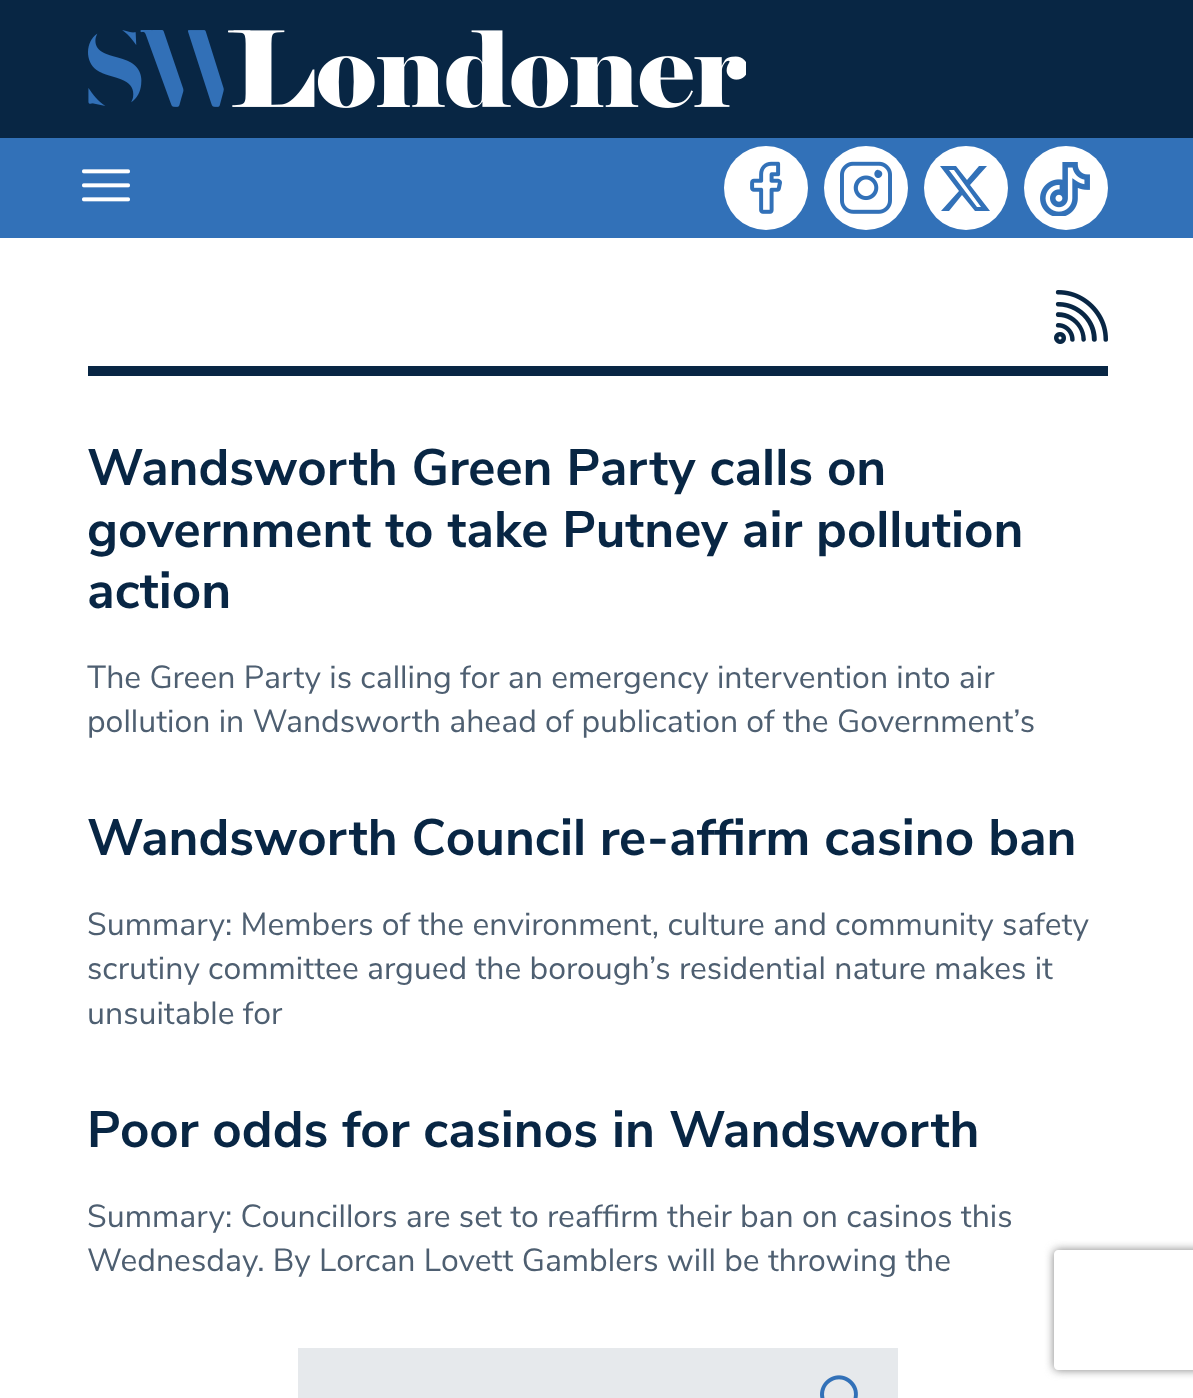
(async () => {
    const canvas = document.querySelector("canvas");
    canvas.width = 1193;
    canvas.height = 1398;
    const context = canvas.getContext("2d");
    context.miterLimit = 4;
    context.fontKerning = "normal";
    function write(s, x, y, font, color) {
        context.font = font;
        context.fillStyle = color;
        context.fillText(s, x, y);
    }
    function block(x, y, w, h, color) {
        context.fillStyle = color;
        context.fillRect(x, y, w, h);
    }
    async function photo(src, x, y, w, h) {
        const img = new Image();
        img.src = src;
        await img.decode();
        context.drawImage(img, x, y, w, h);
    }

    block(0, 0, 1193, 1398, "rgb(255, 255, 255)");
    block(0, 0, 1193, 138, "rgb(8, 38, 68)");
    await photo("media/1.png", 88, 30, 658, 78);
    block(0, 138, 1193, 100, "rgb(50, 113, 184)");
    context.fillStyle = "rgb(255, 255, 255)";
    context.beginPath();
    context.arc(766, 188, 42, 0, Math.PI * 2);
    context.fill();
    await photo("media/2.png", 750, 161, 32, 53);
    context.beginPath();
    context.arc(866, 188, 42, 0, Math.PI * 2);
    context.fill();
    await photo("media/3.png", 840, 161, 52, 53);
    context.beginPath();
    context.arc(966, 188, 42, 0, Math.PI * 2);
    context.fill();
    context.fillStyle = "rgb(50, 113, 184)";
    context.beginPath();
    context.moveTo(979, 166);
    context.lineTo(987, 166);
    context.lineTo(970, 185);
    context.lineTo(990, 211);
    context.lineTo(975, 211);
    context.lineTo(962, 195);
    context.lineTo(949, 211);
    context.lineTo(941, 211);
    context.lineTo(959, 191);
    context.lineTo(940, 166);
    context.lineTo(956, 166);
    context.lineTo(967, 180);
    context.closePath();
    context.moveTo(977, 207);
    context.lineTo(981, 207);
    context.lineTo(954, 170);
    context.lineTo(949, 170);
    context.closePath();
    context.fill();
    context.fillStyle = "rgb(255, 255, 255)";
    context.beginPath();
    context.arc(1066, 188, 42, 0, Math.PI * 2);
    context.fill();
    await photo("media/4.png", 1040, 162, 50, 54);
    await photo("media/5.png", 82, 169, 48, 33);
    block(88, 366, 1020, 10, "rgb(8, 38, 68)");
    await photo("media/6.png", 1054, 290, 54, 54);
    write("Wandsworth Green Party calls on", 87, 485, "bold 51.25px Nunito Sans", "rgb(8, 38, 68)");
    write("government to take Putney air pollution", 87, 547, "bold 51.25px Nunito Sans", "rgb(8, 38, 68)");
    write("action", 87, 608, "bold 51.25px Nunito Sans", "rgb(8, 38, 68)");
    write("The Green Party is calling for an emergency intervention into air", 87, 688, "32px Nunito Sans", "rgb(78, 95, 113)");
    write("pollution in Wandsworth ahead of publication of the Government’s", 87, 732, "32px Nunito Sans", "rgb(78, 95, 113)");
    write("Wandsworth Council re-affirm casino ban", 87, 855, "bold 51.25px Nunito Sans", "rgb(8, 38, 68)");
    write("Summary: Members of the environment, culture and community safety", 87, 935, "32px Nunito Sans", "rgb(78, 95, 113)");
    write("scrutiny committee argued the borough’s residential nature makes it", 87, 979, "32px Nunito Sans", "rgb(78, 95, 113)");
    write("unsuitable for", 87, 1024, "32px Nunito Sans", "rgb(78, 95, 113)");
    write("Poor odds for casinos in Wandsworth", 87, 1147, "bold 51.25px Nunito Sans", "rgb(8, 38, 68)");
    write("Summary: Councillors are set to reaffirm their ban on casinos this", 87, 1227, "32px Nunito Sans", "rgb(78, 95, 113)");
    write("Wednesday. By Lorcan Lovett Gamblers will be throwing the", 87, 1271, "32px Nunito Sans", "rgb(78, 95, 113)");
    block(298, 1348, 600, 50, "rgb(230, 233, 236)");
    await photo("media/7.png", 820, 1375, 38, 23);
    context.save();
    context.beginPath();
    context.moveTo(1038, 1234);
    context.lineTo(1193, 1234);
    context.lineTo(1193, 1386);
    context.lineTo(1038, 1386);
    context.closePath();
    context.moveTo(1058, 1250);
    context.lineTo(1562, 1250);
    context.bezierCurveTo(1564, 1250, 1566, 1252, 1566, 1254);
    context.lineTo(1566, 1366);
    context.bezierCurveTo(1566, 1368, 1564, 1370, 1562, 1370);
    context.lineTo(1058, 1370);
    context.bezierCurveTo(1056, 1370, 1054, 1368, 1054, 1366);
    context.lineTo(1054, 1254);
    context.bezierCurveTo(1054, 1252, 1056, 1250, 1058, 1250);
    context.closePath();
    context.clip("evenodd");
    context.fillStyle = "rgb(128, 128, 128)";
    context.filter = "blur(5px)";
    context.beginPath();
    context.roundRect(1054, 1250, 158, 120, 4);
    context.fill();
    context.filter = "none";
    context.restore();
})();
